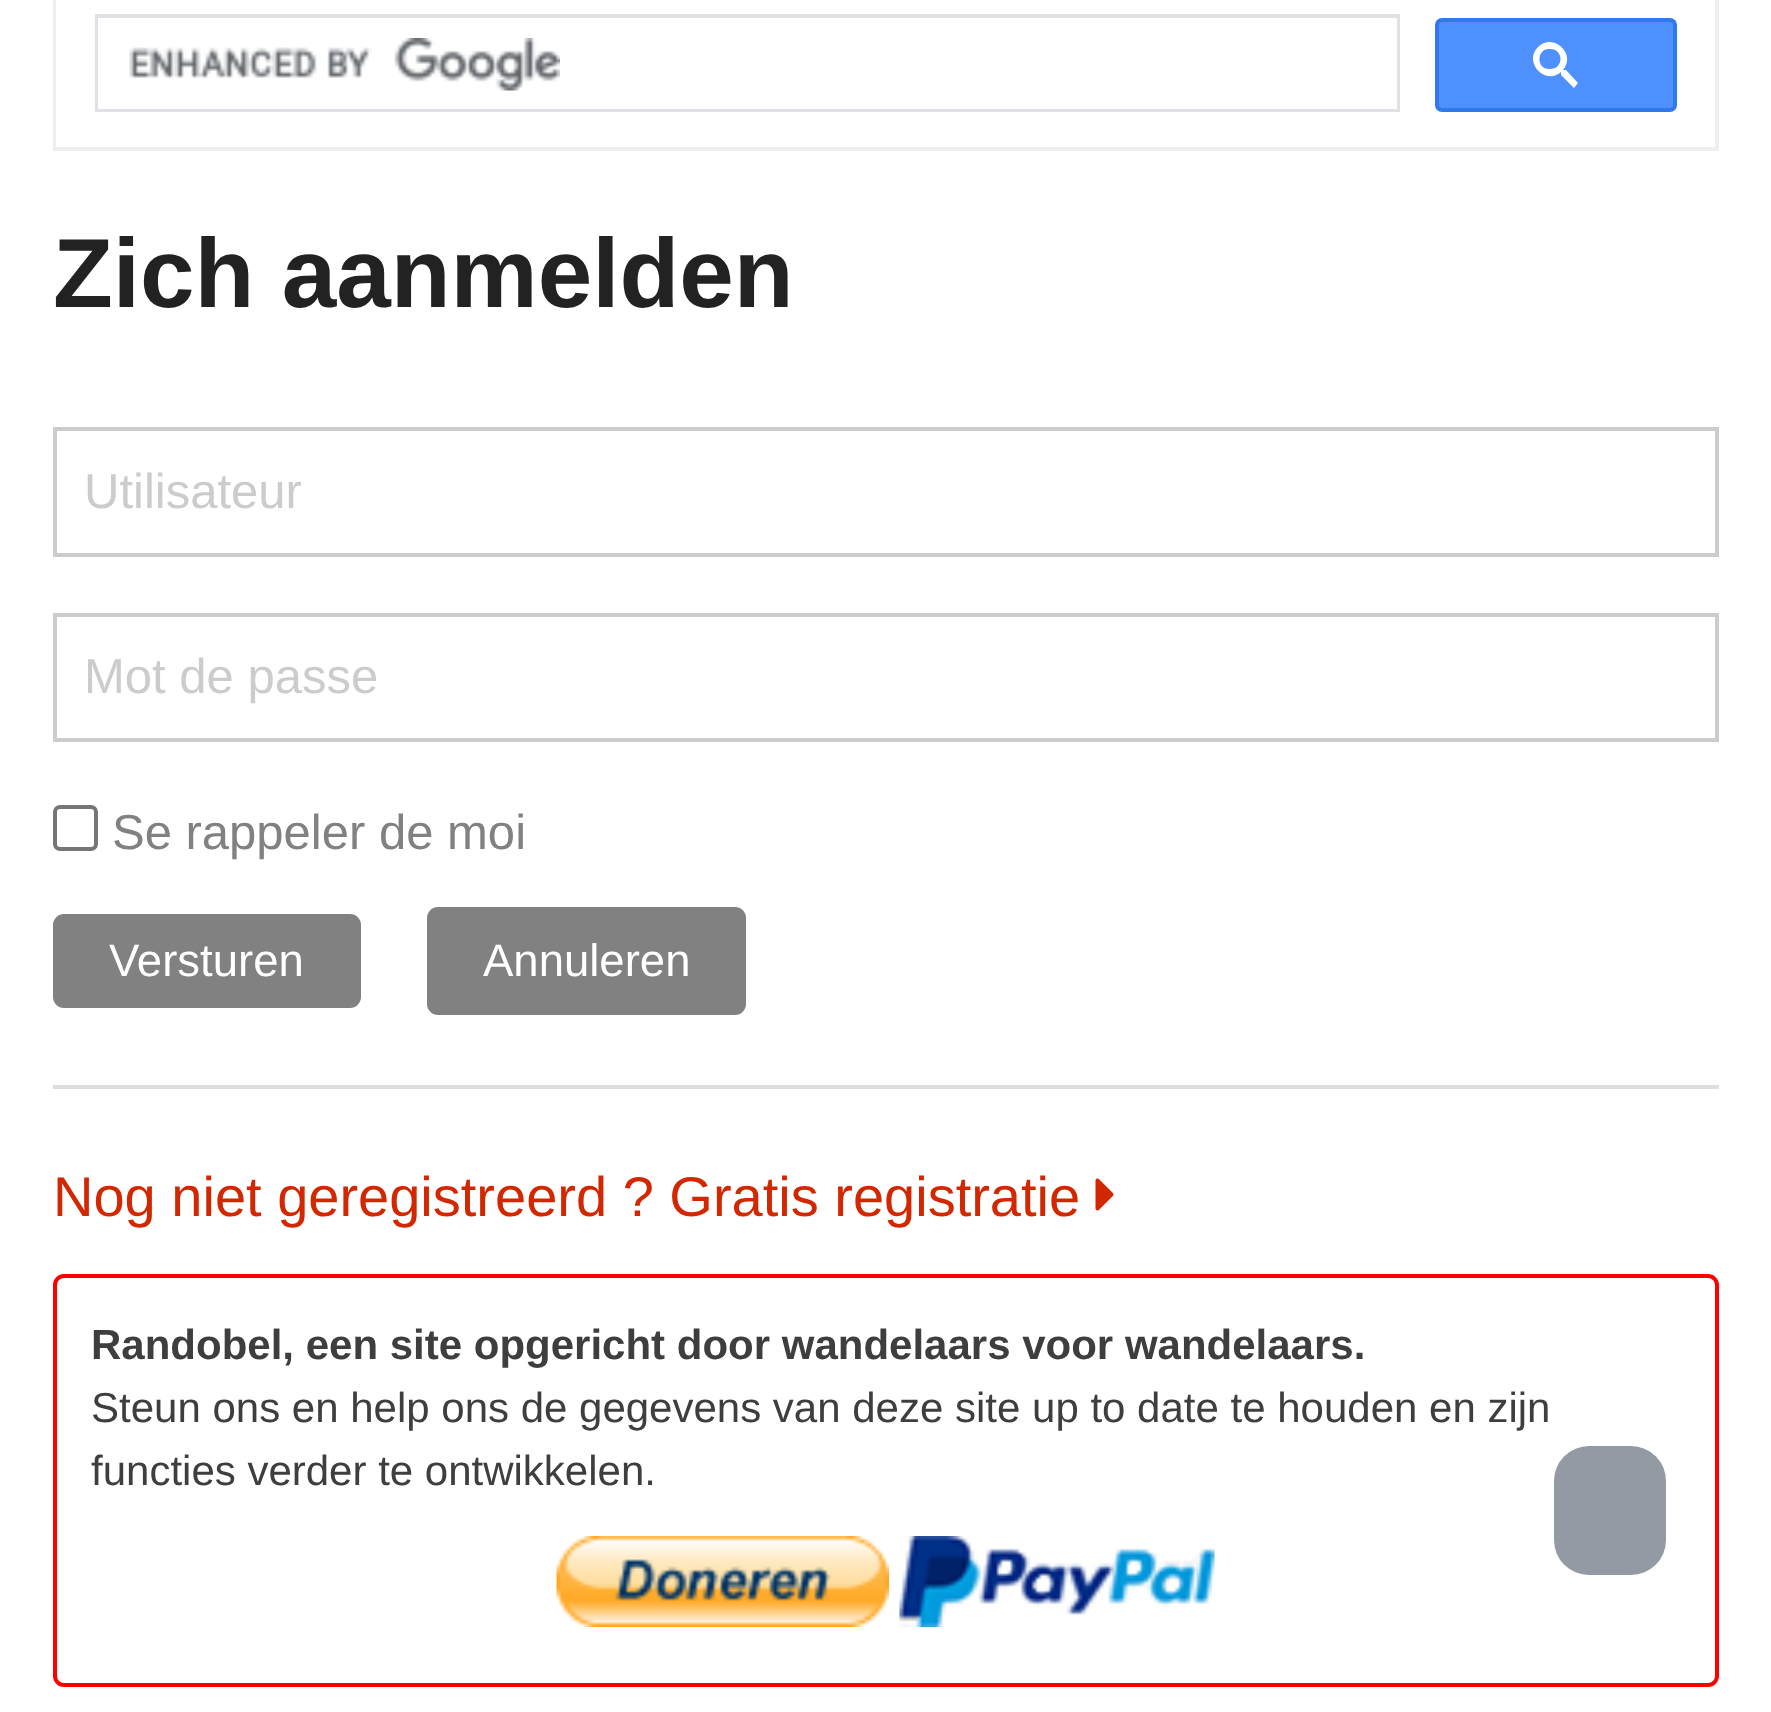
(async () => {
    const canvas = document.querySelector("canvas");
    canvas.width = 1771;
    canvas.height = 1712;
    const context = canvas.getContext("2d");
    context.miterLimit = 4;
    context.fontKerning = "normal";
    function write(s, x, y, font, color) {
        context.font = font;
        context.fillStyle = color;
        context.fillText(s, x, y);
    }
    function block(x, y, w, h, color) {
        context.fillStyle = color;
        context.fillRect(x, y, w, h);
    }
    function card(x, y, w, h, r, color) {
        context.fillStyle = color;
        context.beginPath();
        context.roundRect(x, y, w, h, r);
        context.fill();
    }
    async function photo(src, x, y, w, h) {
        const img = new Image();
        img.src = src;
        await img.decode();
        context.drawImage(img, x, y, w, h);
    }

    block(0, 0, 1771, 1712, "rgb(255, 255, 255)");
    context.strokeStyle = "rgb(239, 239, 239)";
    context.lineWidth = 4;
    context.strokeRect(55, -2, 1662, 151);
    block(56, 0, 1, 147, "rgb(255, 255, 255)");
    context.strokeStyle = "rgb(223, 225, 229)";
    context.strokeRect(97, 16, 1301, 94);
    block(98, 18, 1299, 91, "rgb(255, 255, 255)");
    await photo("media/1.png", 129, 38, 431, 53);
    context.fillStyle = "rgb(77, 144, 254)";
    context.beginPath();
    context.roundRect(1437, 20, 238, 90, 5);
    context.fill();
    context.strokeStyle = "rgb(48, 121, 237)";
    context.stroke();
    context.fillStyle = "rgb(255, 255, 255)";
    context.beginPath();
    context.moveTo(1550, 69);
    context.bezierCurveTo(1564, 69, 1564, 49, 1550, 49);
    context.bezierCurveTo(1536, 48, 1536, 70, 1550, 69);
    context.closePath();
    context.moveTo(1566, 70);
    context.lineTo(1578, 83);
    context.lineTo(1574, 88);
    context.lineTo(1561, 75);
    context.lineTo(1561, 72);
    context.bezierCurveTo(1545, 86, 1523, 62, 1538, 47);
    context.bezierCurveTo(1553, 32, 1577, 54, 1563, 70);
    context.closePath();
    context.fill();
    write("Zich aanmelden", 53, 307, "bold 98px Liberation Sans", "rgb(34, 34, 34)");
    context.strokeStyle = "rgb(204, 204, 204)";
    context.strokeRect(55, 429, 1662, 126);
    write("Utilisateur", 84, 508, "49px Liberation Sans", "rgb(204, 204, 204)");
    context.strokeRect(55, 615, 1662, 125);
    write("Mot de passe", 84, 693, "49px Liberation Sans", "rgb(204, 204, 204)");
    context.beginPath();
    context.roundRect(55, 807, 41, 42, 5);
    context.strokeStyle = "rgb(118, 118, 118)";
    context.stroke();
    write("Se rappeler de moi", 112, 849, "49px Liberation Sans", "rgb(129, 129, 129)");
    card(53, 914, 308, 94, 11, "rgb(129, 129, 129)");
    write("Versturen", 109, 976, "45.5px Liberation Sans", "rgb(255, 255, 255)");
    card(427, 907, 319, 108, 11, "rgb(129, 129, 129)");
    write("Annuleren", 483, 976, "45.5px Liberation Sans", "rgb(255, 255, 255)");
    block(53, 1085, 1666, 4, "rgb(221, 221, 221)");
    write("Nog niet geregistreerd ? Gratis registratie", 53, 1216, "56px Liberation Sans", "rgb(210, 39, 0)");
    await photo("media/2.png", 1095, 1178, 19, 33);
    context.beginPath();
    context.roundRect(55, 1276, 1662, 409, 9);
    context.strokeStyle = "rgb(255, 0, 0)";
    context.stroke();
    write("Randobel, een site opgericht door wandelaars voor wandelaars.", 91, 1359, "bold 42px Liberation Sans", "rgb(62, 62, 62)");
    write("Steun ons en help ons de gegevens van deze site up to date te houden en zijn", 91, 1422, "42px Liberation Sans", "rgb(62, 62, 62)");
    write("functies verder te ontwikkelen.", 91, 1485, "42px Liberation Sans", "rgb(62, 62, 62)");
    await photo("media/3.png", 556, 1536, 333, 91);
    await photo("media/4.png", 899, 1536, 316, 91);
    card(1554, 1446, 112, 129, 35, "rgb(147, 154, 164)");
})();
